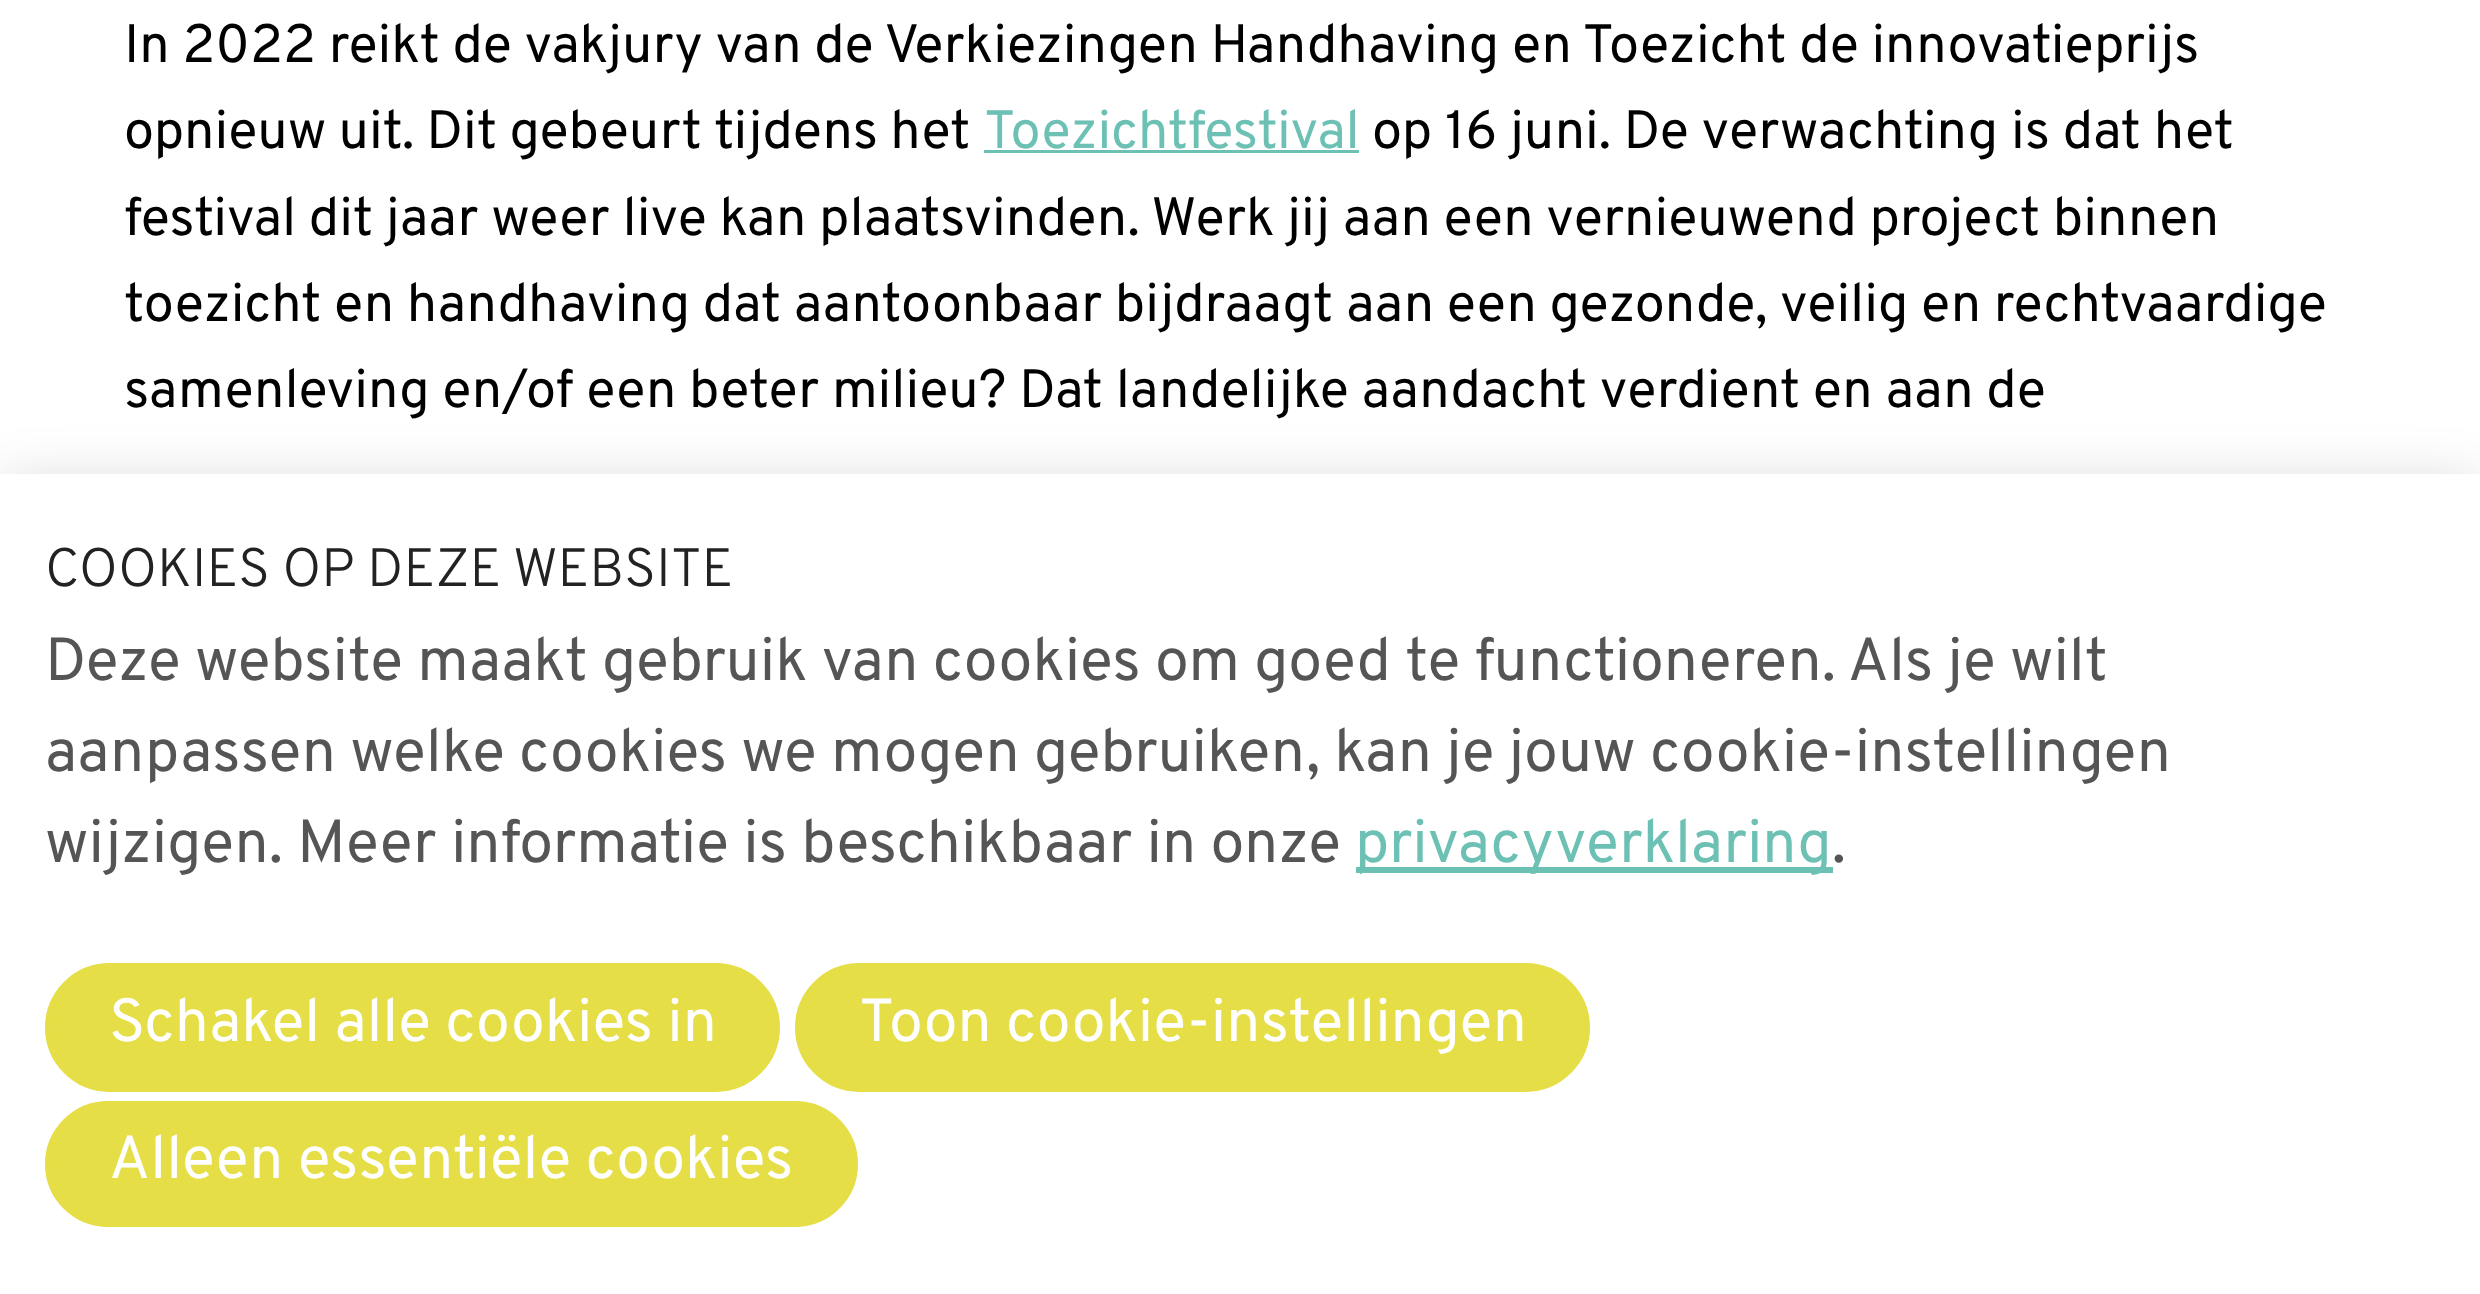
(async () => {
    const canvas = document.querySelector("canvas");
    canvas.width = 2480;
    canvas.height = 1294;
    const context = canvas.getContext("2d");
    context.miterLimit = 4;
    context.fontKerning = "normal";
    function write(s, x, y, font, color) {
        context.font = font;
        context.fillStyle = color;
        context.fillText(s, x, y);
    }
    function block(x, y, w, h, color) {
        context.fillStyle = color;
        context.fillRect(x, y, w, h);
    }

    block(0, 0, 2480, 1294, "rgb(255, 255, 255)");
    write("In 2022 reikt de vakjury van de Verkiezingen Handhaving en Toezicht de innovatieprijs", 124, 62, "54px Overpass", "rgb(0, 0, 0)");
    context.wordSpacing = "-0.5px";
    write("opnieuw uit. Dit gebeurt tijdens het", 124, 148, "54px Overpass", "rgb(0, 0, 0)");
    context.wordSpacing = "0px";
    write("Toezichtfestival", 984, 148, "54px Overpass", "rgb(108, 192, 180)");
    block(984, 150, 375, 3, "rgb(108, 192, 180)");
    write("op 16 juni. De verwachting is dat het", 1372, 148, "54px Overpass", "rgb(0, 0, 0)");
    write("festival dit jaar weer live kan plaatsvinden. Werk jij aan een vernieuwend project binnen", 124, 235, "54px Overpass", "rgb(0, 0, 0)");
    write("toezicht en handhaving dat aantoonbaar bijdraagt aan een gezonde, veilig en rechtvaardige", 124, 321, "54px Overpass", "rgb(0, 0, 0)");
    write("samenleving en/of een beter milieu? Dat landelijke aandacht verdient en aan de", 124, 407, "54px Overpass", "rgb(0, 0, 0)");
    context.fillStyle = "rgba(0, 0, 0, 0.2)";
    context.filter = "blur(30px)";
    context.beginPath();
    context.rect(0, 489, 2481, 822);
    context.fill();
    context.filter = "none";
    block(0, 474, 2480, 820, "rgb(255, 255, 255)");
    write("COOKIES OP DEZE WEBSITE", 45, 586, "300 54px Overpass", "rgb(34, 34, 34)");
    write("Deze website maakt gebruik van cookies om goed te functioneren. Als je wilt", 45, 680, "60.75px Overpass", "rgb(85, 85, 85)");
    write("aanpassen welke cookies we mogen gebruiken, kan je jouw cookie-instellingen", 45, 771, "60.75px Overpass", "rgb(85, 85, 85)");
    write("wijzigen. Meer informatie is beschikbaar in onze", 45, 862, "60.75px Overpass", "rgb(85, 85, 85)");
    block(1356, 867, 477, 6, "rgb(108, 192, 180)");
    write("privacyverklaring", 1355, 862, "60.75px Overpass", "rgb(108, 192, 180)");
    write(".", 1832, 862, "60.75px Overpass", "rgb(85, 85, 85)");
    context.fillStyle = "rgb(229, 222, 70)";
    context.beginPath();
    context.roundRect(46.5, 964.5, 732, 126, 63);
    context.fill();
    context.strokeStyle = "rgb(229, 222, 70)";
    context.lineWidth = 3;
    context.stroke();
    write("Schakel alle cookies in", 109, 1041, "60.75px Overpass", "rgb(255, 255, 255)");
    context.fillStyle = "rgb(229, 222, 70)";
    context.beginPath();
    context.roundRect(796.5, 964.5, 792, 126, 63);
    context.fill();
    context.stroke();
    write("Toon cookie-instellingen", 859, 1041, "60.75px Overpass", "rgb(255, 255, 255)");
    context.fillStyle = "rgb(229, 222, 70)";
    context.beginPath();
    context.roundRect(46.5, 1102.5, 810, 123, 61.5);
    context.fill();
    context.stroke();
    write("Alleen essentiële cookies", 109, 1178, "60.75px Overpass", "rgb(255, 255, 255)");
})();
